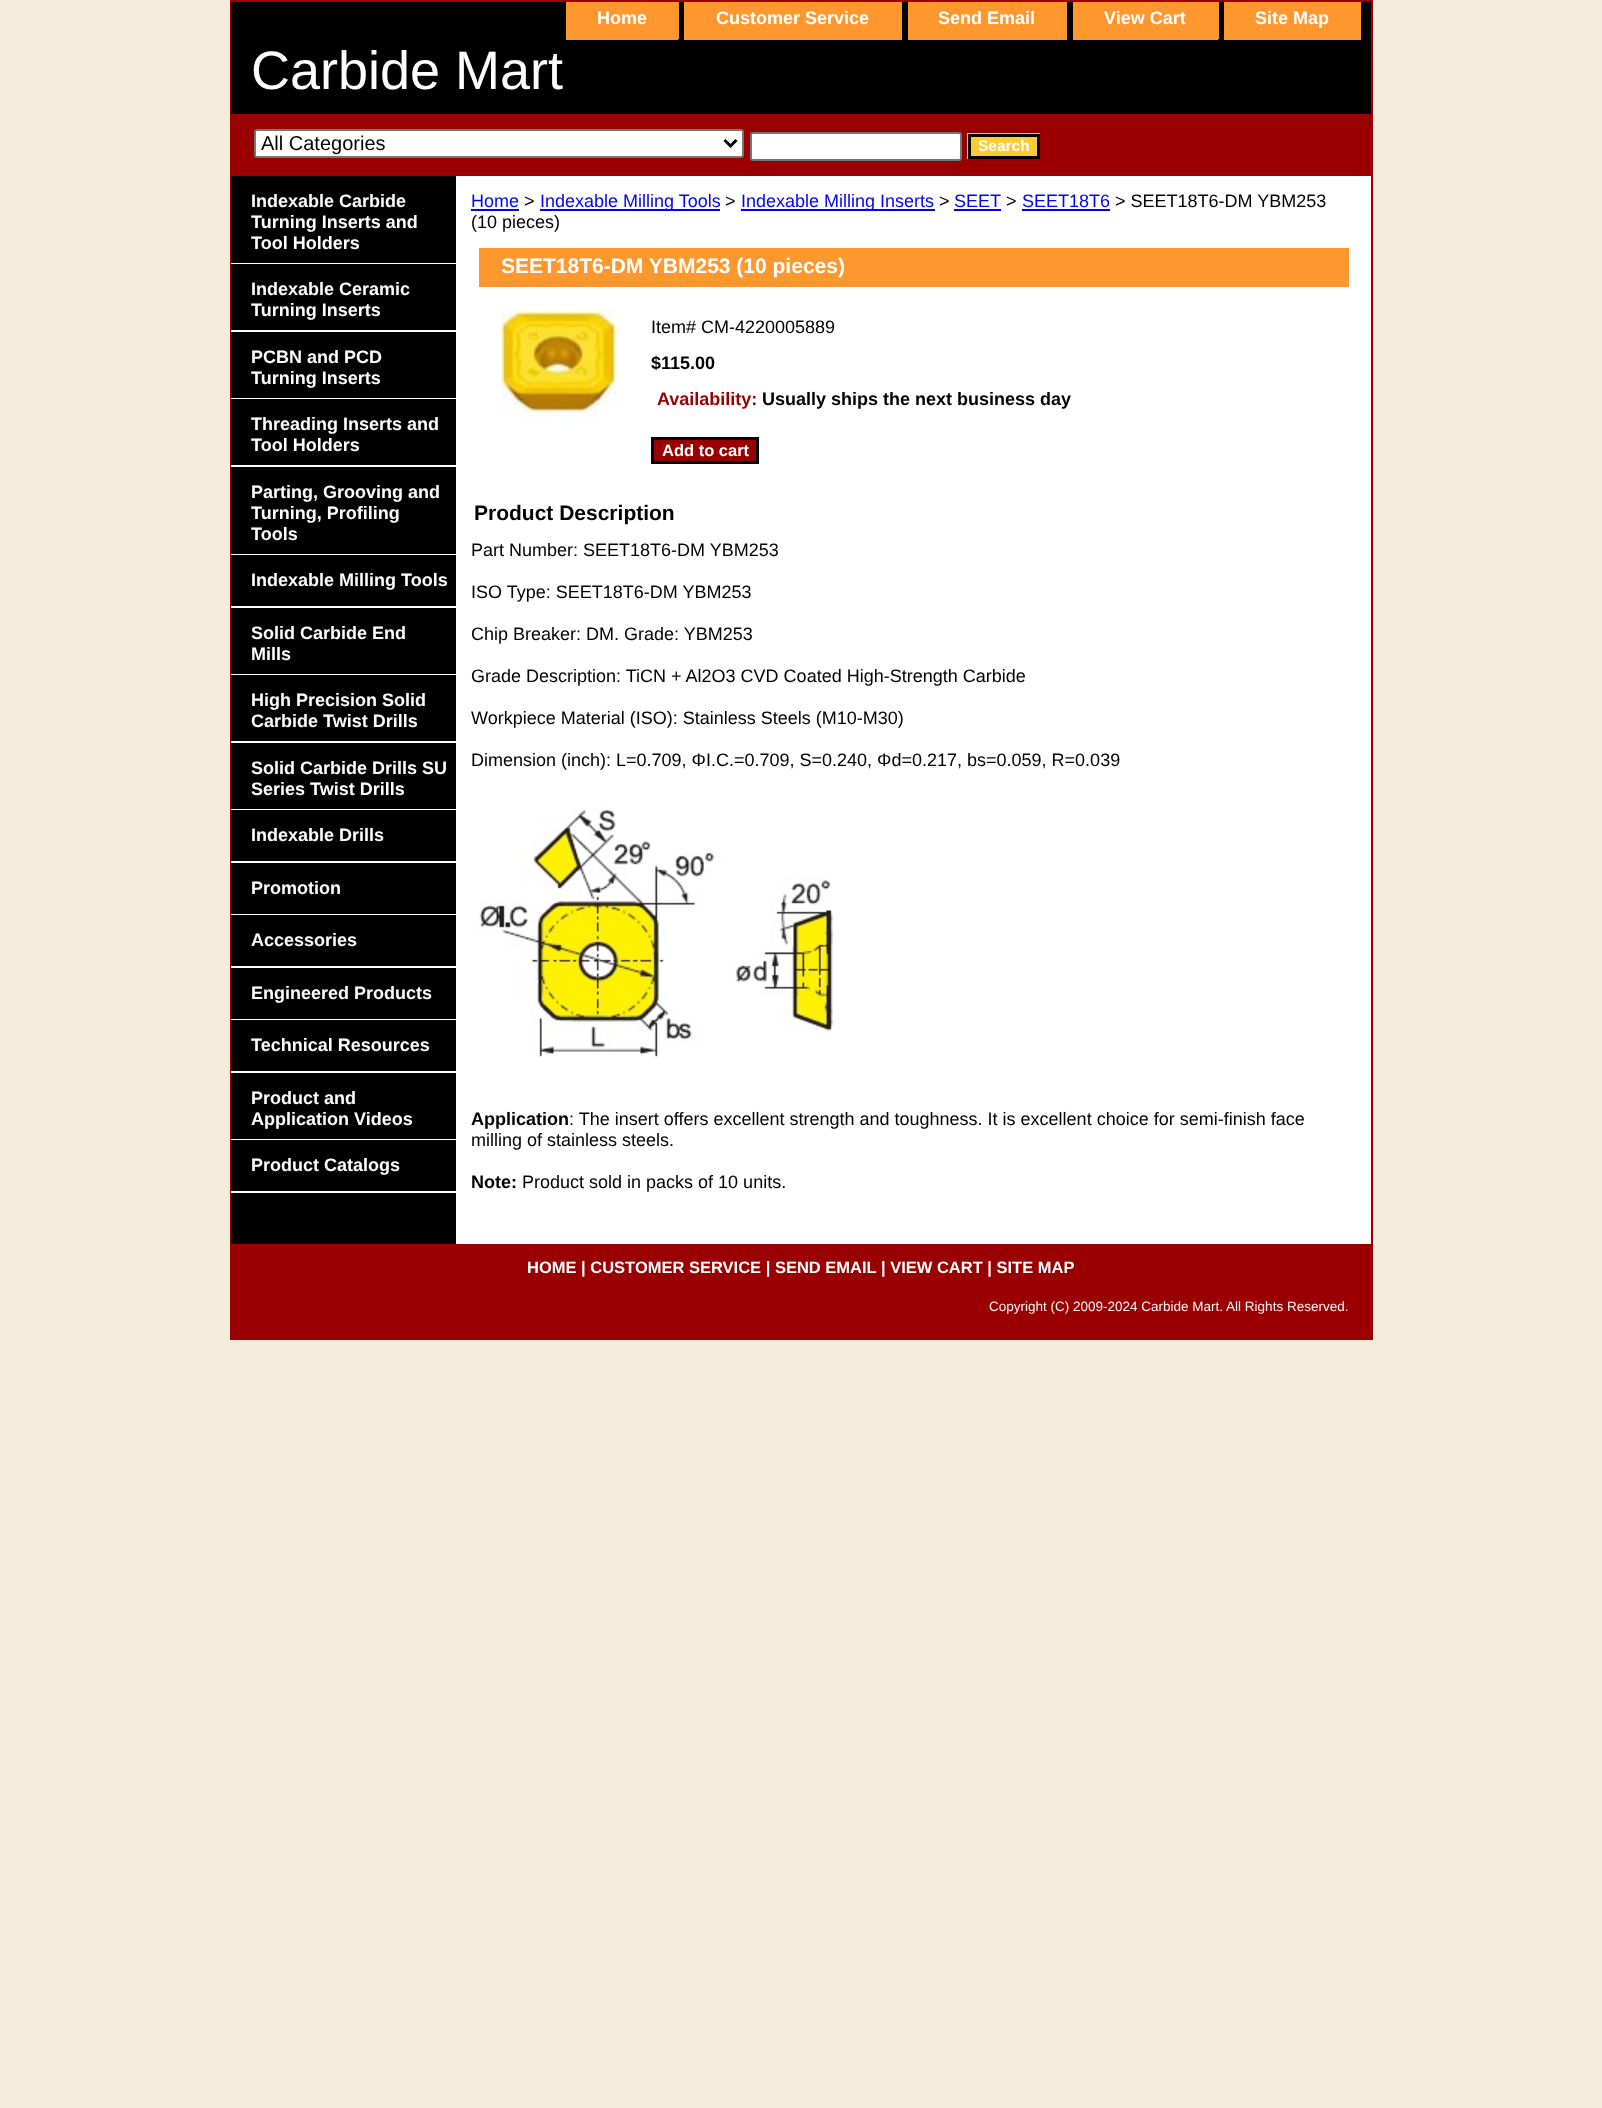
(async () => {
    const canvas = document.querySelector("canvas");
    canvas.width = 1602;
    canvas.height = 2108;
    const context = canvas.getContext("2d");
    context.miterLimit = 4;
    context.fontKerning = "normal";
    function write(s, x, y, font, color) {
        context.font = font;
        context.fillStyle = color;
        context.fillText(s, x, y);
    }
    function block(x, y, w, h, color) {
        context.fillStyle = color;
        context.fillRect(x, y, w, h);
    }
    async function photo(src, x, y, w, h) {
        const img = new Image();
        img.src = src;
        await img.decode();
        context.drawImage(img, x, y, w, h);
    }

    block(0, 0, 1602, 2108, "rgb(243, 236, 218)");
    context.strokeStyle = "rgb(154, 0, 2)";
    context.lineWidth = 2;
    context.strokeRect(231, 1, 1141, 1338);
    block(231, 2, 1140, 112, "rgb(0, 0, 0)");
    block(566, 2, 111, 36, "rgb(255, 151, 47)");
    block(677, 2, 2, 37, "rgb(255, 151, 47)");
    block(566, 38, 112, 2, "rgb(255, 151, 47)");
    write("Home", 597, 24, "bold 18px Liberation Sans", "rgb(255, 255, 255)");
    block(684, 2, 218, 38, "rgb(255, 151, 47)");
    write("Customer Service", 716, 24, "bold 18px Liberation Sans", "rgb(255, 255, 255)");
    block(908, 2, 159, 38, "rgb(255, 151, 47)");
    write("Send Email", 938, 24, "bold 18px Liberation Sans", "rgb(255, 255, 255)");
    block(1073, 2, 144, 36, "rgb(255, 151, 47)");
    block(1217, 2, 2, 37, "rgb(255, 151, 47)");
    block(1073, 38, 145, 2, "rgb(255, 151, 47)");
    write("View Cart", 1104, 24, "bold 18px Liberation Sans", "rgb(255, 255, 255)");
    block(1224, 2, 137, 38, "rgb(255, 151, 47)");
    write("Site Map", 1255, 24, "bold 18px Liberation Sans", "rgb(255, 255, 255)");
    write("Carbide Mart", 251, 89, "54px Liberation Sans", "rgb(255, 255, 255)");
    block(232, 114, 1139, 62, "rgb(154, 0, 2)");
    context.fillStyle = "rgb(255, 255, 255)";
    context.beginPath();
    context.roundRect(255, 130, 488, 27, 2);
    context.fill();
    context.strokeStyle = "rgb(118, 118, 118)";
    context.stroke();
    context.beginPath();
    context.moveTo(724.5, 140);
    context.lineTo(730.5, 146);
    context.lineTo(736.5, 140);
    context.strokeStyle = "rgb(0, 0, 0)";
    context.lineWidth = 3;
    context.stroke();
    write("All Categories", 261, 150, "20px Liberation Sans", "rgb(0, 0, 0)");
    context.fillStyle = "rgb(255, 255, 255)";
    context.beginPath();
    context.roundRect(751, 133, 210, 27, 2);
    context.fill();
    context.strokeStyle = "rgb(118, 118, 118)";
    context.lineWidth = 2;
    context.stroke();
    block(967, 133, 73, 26, "rgb(254, 203, 50)");
    context.strokeStyle = "rgb(0, 0, 0)";
    context.lineWidth = 3;
    context.strokeRect(969.5, 135.5, 69, 22);
    write("Search", 978, 151, "bold 15.5px Liberation Sans", "rgb(255, 255, 255)");
    block(456, 176, 915, 1068, "rgb(255, 255, 255)");
    block(231, 176, 225, 1068, "rgb(0, 0, 0)");
    block(231, 263, 225, 1, "rgb(255, 255, 255)");
    write("Indexable Carbide", 251, 207, "bold 18px Liberation Sans", "rgb(255, 255, 255)");
    write("Turning Inserts and", 251, 228, "bold 18px Liberation Sans", "rgb(255, 255, 255)");
    write("Tool Holders", 251, 249, "bold 18px Liberation Sans", "rgb(255, 255, 255)");
    block(231, 330, 225, 2, "rgb(255, 255, 255)");
    write("Indexable Ceramic", 251, 295, "bold 18px Liberation Sans", "rgb(255, 255, 255)");
    write("Turning Inserts", 251, 316, "bold 18px Liberation Sans", "rgb(255, 255, 255)");
    block(231, 398, 225, 1, "rgb(255, 255, 255)");
    write("PCBN and PCD", 251, 363, "bold 18px Liberation Sans", "rgb(255, 255, 255)");
    write("Turning Inserts", 251, 384, "bold 18px Liberation Sans", "rgb(255, 255, 255)");
    block(231, 465, 225, 2, "rgb(255, 255, 255)");
    write("Threading Inserts and", 251, 430, "bold 18px Liberation Sans", "rgb(255, 255, 255)");
    write("Tool Holders", 251, 451, "bold 18px Liberation Sans", "rgb(255, 255, 255)");
    block(231, 554, 225, 1, "rgb(255, 255, 255)");
    write("Parting, Grooving and", 251, 498, "bold 18px Liberation Sans", "rgb(255, 255, 255)");
    write("Turning, Profiling", 251, 519, "bold 18px Liberation Sans", "rgb(255, 255, 255)");
    write("Tools", 251, 540, "bold 18px Liberation Sans", "rgb(255, 255, 255)");
    block(231, 606, 225, 2, "rgb(255, 255, 255)");
    write("Indexable Milling Tools", 251, 586, "bold 18px Liberation Sans", "rgb(255, 255, 255)");
    block(231, 674, 225, 1, "rgb(255, 255, 255)");
    write("Solid Carbide End", 251, 639, "bold 18px Liberation Sans", "rgb(255, 255, 255)");
    write("Mills", 251, 660, "bold 18px Liberation Sans", "rgb(255, 255, 255)");
    block(231, 741, 225, 2, "rgb(255, 255, 255)");
    write("High Precision Solid", 251, 706, "bold 18px Liberation Sans", "rgb(255, 255, 255)");
    write("Carbide Twist Drills", 251, 727, "bold 18px Liberation Sans", "rgb(255, 255, 255)");
    block(231, 809, 225, 1, "rgb(255, 255, 255)");
    write("Solid Carbide Drills SU", 251, 774, "bold 18px Liberation Sans", "rgb(255, 255, 255)");
    write("Series Twist Drills", 251, 795, "bold 18px Liberation Sans", "rgb(255, 255, 255)");
    block(231, 861, 225, 2, "rgb(255, 255, 255)");
    write("Indexable Drills", 251, 841, "bold 18px Liberation Sans", "rgb(255, 255, 255)");
    block(231, 914, 225, 1, "rgb(255, 255, 255)");
    write("Promotion", 251, 894, "bold 18px Liberation Sans", "rgb(255, 255, 255)");
    block(231, 966, 225, 2, "rgb(255, 255, 255)");
    write("Accessories", 251, 946, "bold 18px Liberation Sans", "rgb(255, 255, 255)");
    block(231, 1019, 225, 1, "rgb(255, 255, 255)");
    write("Engineered Products", 251, 999, "bold 18px Liberation Sans", "rgb(255, 255, 255)");
    block(231, 1071, 225, 2, "rgb(255, 255, 255)");
    write("Technical Resources", 251, 1051, "bold 18px Liberation Sans", "rgb(255, 255, 255)");
    block(231, 1139, 225, 1, "rgb(255, 255, 255)");
    write("Product and", 251, 1104, "bold 18px Liberation Sans", "rgb(255, 255, 255)");
    write("Application Videos", 251, 1125, "bold 18px Liberation Sans", "rgb(255, 255, 255)");
    block(231, 1191, 225, 2, "rgb(255, 255, 255)");
    write("Product Catalogs", 251, 1171, "bold 18px Liberation Sans", "rgb(255, 255, 255)");
    write("Home", 471, 207, "18px Liberation Sans", "rgb(0, 0, 255)");
    block(471, 209, 48, 2, "rgb(0, 0, 255)");
    write(">", 524, 207, "18px Liberation Sans", "rgb(0, 0, 0)");
    block(540, 209, 180, 2, "rgb(0, 0, 255)");
    write("Indexable Milling Tools", 540, 207, "18px Liberation Sans", "rgb(0, 0, 255)");
    write(">", 725, 207, "18px Liberation Sans", "rgb(0, 0, 0)");
    block(741, 209, 194, 2, "rgb(0, 0, 255)");
    write("Indexable Milling Inserts", 741, 207, "18px Liberation Sans", "rgb(0, 0, 255)");
    write(">", 939, 207, "18px Liberation Sans", "rgb(0, 0, 0)");
    write("SEET", 954, 207, "18px Liberation Sans", "rgb(0, 0, 255)");
    block(954, 209, 47, 2, "rgb(0, 0, 255)");
    write(">", 1006, 207, "18px Liberation Sans", "rgb(0, 0, 0)");
    write("SEET18T6", 1022, 207, "18px Liberation Sans", "rgb(0, 0, 255)");
    block(1022, 209, 88, 2, "rgb(0, 0, 255)");
    write("> SEET18T6-DM YBM253", 1115, 207, "18px Liberation Sans", "rgb(0, 0, 0)");
    write("(10 pieces)", 471, 228, "18px Liberation Sans", "rgb(0, 0, 0)");
    block(479, 248, 870, 39, "rgb(255, 151, 47)");
    write("SEET18T6-DM YBM253 (10 pieces)", 501, 273, "bold 21px Liberation Sans", "rgb(255, 255, 255)");
    await photo("media/1.png", 501, 309, 120, 108);
    write("Item# CM-4220005889", 651, 333, "18px Liberation Sans", "rgb(0, 0, 0)");
    write("$115.00", 651, 369, "bold 18px Liberation Sans", "rgb(0, 0, 0)");
    write("Availability:", 657, 405, "bold 18px Liberation Sans", "rgb(154, 0, 2)");
    write("Usually ships the next business day", 762, 405, "bold 18px Liberation Sans", "rgb(0, 0, 0)");
    context.fillStyle = "rgb(154, 0, 2)";
    context.beginPath();
    context.rect(652.5, 438.5, 105, 24);
    context.fill();
    context.stroke();
    write("Add to cart", 662, 456, "bold 16.5px Liberation Sans", "rgb(255, 255, 255)");
    write("Product Description", 474, 520, "bold 21px Liberation Sans", "rgb(0, 0, 0)");
    write("Part Number: SEET18T6-DM YBM253", 471, 556, "18px Liberation Sans", "rgb(0, 0, 0)");
    write("ISO Type: SEET18T6-DM YBM253", 471, 598, "18px Liberation Sans", "rgb(0, 0, 0)");
    write("Chip Breaker: DM. Grade: YBM253", 471, 640, "18px Liberation Sans", "rgb(0, 0, 0)");
    write("Grade Description: TiCN + Al2O3 CVD Coated High-Strength Carbide", 471, 682, "18px Liberation Sans", "rgb(0, 0, 0)");
    write("Workpiece Material (ISO): Stainless Steels (M10-M30)", 471, 724, "18px Liberation Sans", "rgb(0, 0, 0)");
    write("Dimension (inch): L=0.709, ΦI.C.=0.709, S=0.240, Φd=0.217, bs=0.059, R=0.039", 471, 766, "18px Liberation Sans", "rgb(0, 0, 0)");
    await photo("media/2.png", 479, 807, 355, 250);
    write("Application", 471, 1125, "bold 18px Liberation Sans", "rgb(0, 0, 0)");
    write(": The insert offers excellent strength and toughness. It is excellent choice for semi-finish face", 569, 1125, "18px Liberation Sans", "rgb(0, 0, 0)");
    write("milling of stainless steels.", 471, 1146, "18px Liberation Sans", "rgb(0, 0, 0)");
    write("Note:", 471, 1188, "bold 18px Liberation Sans", "rgb(0, 0, 0)");
    write("Product sold in packs of 10 units.", 522, 1188, "18px Liberation Sans", "rgb(0, 0, 0)");
    block(232, 1244, 1139, 94, "rgb(154, 0, 2)");
    write("HOME | CUSTOMER SERVICE | SEND EMAIL | VIEW CART | SITE MAP", 527, 1273, "bold 16.5px Liberation Sans", "rgb(255, 255, 255)");
    write("Copyright (C) 2009-2024 Carbide Mart. All Rights Reserved.", 989, 1311, "13.5px Liberation Sans", "rgb(246, 246, 246)");
})();
